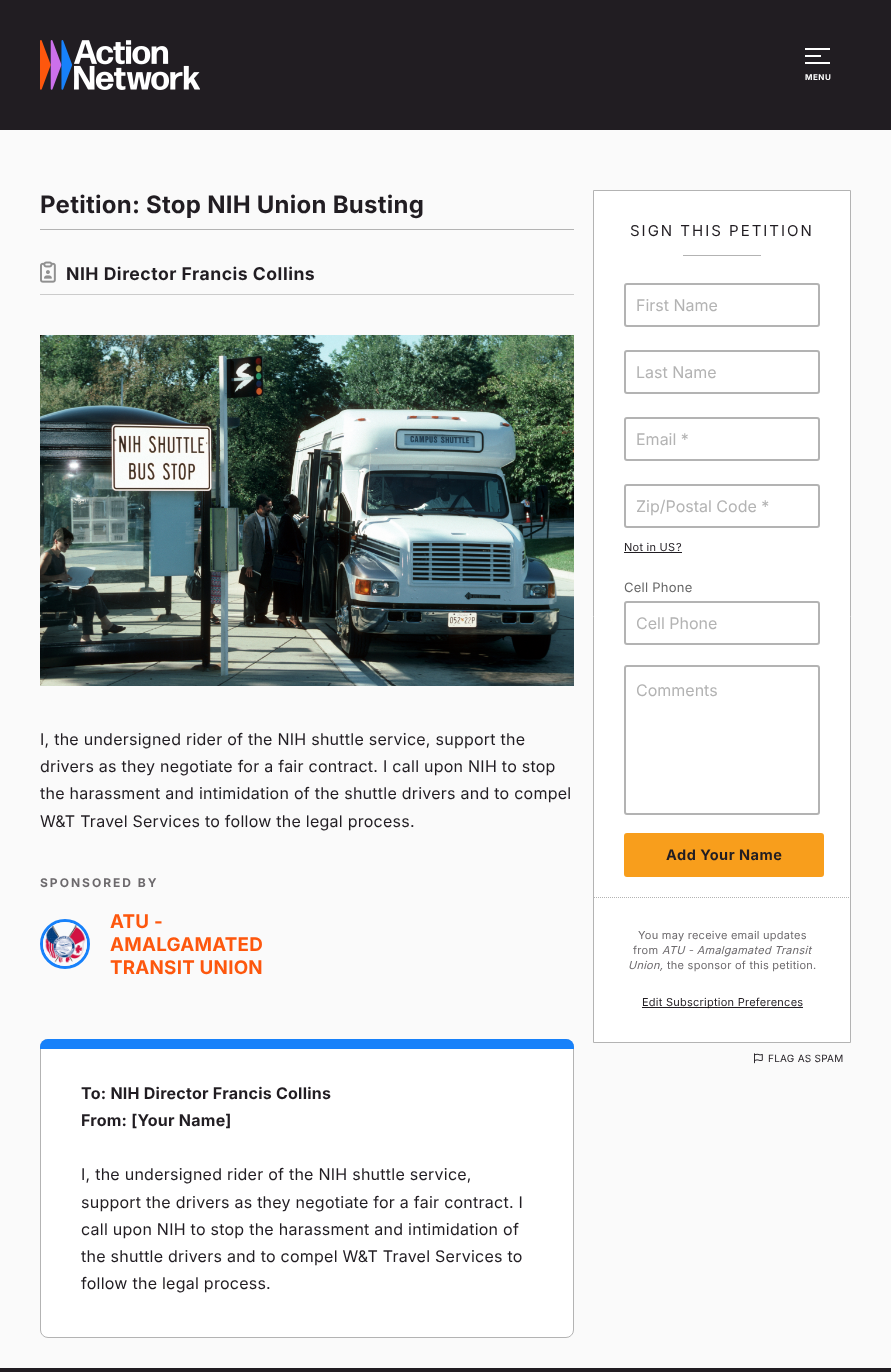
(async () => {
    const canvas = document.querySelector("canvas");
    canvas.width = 891;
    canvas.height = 1372;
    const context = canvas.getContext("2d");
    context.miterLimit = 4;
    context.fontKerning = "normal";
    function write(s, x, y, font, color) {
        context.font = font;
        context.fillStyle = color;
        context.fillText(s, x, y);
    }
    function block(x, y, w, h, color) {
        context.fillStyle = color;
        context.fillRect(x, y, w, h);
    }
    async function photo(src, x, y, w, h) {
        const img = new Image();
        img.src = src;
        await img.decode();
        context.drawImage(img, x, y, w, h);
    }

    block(0, 0, 891, 1372, "rgb(33, 29, 34)");
    await photo("media/1.png", 40, 40, 160, 50);
    block(805, 55, 16, 2, "rgb(255, 255, 255)");
    block(805, 48, 25, 2, "rgb(255, 255, 255)");
    block(805, 62, 25, 2, "rgb(255, 255, 255)");
    context.letterSpacing = "0.5px";
    write("MENU", 805, 80, "bold 8px Inter", "rgb(255, 255, 255)");
    block(0, 130, 891, 1238, "rgb(250, 250, 250)");
    block(40, 229, 534, 1, "rgb(179, 179, 179)");
    context.letterSpacing = "0.25px";
    write("Petition: Stop NIH Union Busting", 40, 213, "bold 24px Inter", "rgb(33, 29, 34)");
    block(40, 294, 534, 1, "rgb(203, 203, 203)");
    await photo("media/2.png", 40, 261, 16, 22);
    context.letterSpacing = "0.5px";
    write("NIH Director Francis Collins", 66, 280, "bold 17.6px Inter", "rgb(33, 29, 34)");
    await photo("media/3.png", 40, 335, 534, 351);
    context.letterSpacing = "0.25px";
    write("I, the undersigned rider of the NIH shuttle service, support the", 40, 745, "16px Inter", "rgb(33, 29, 34)");
    write("drivers as they negotiate for a fair contract. I call upon NIH to stop", 40, 772, "16px Inter", "rgb(33, 29, 34)");
    write("the harassment and intimidation of the shuttle drivers and to compel", 40, 799, "16px Inter", "rgb(33, 29, 34)");
    write("W&T Travel Services to follow the legal process.", 40, 827, "16px Inter", "rgb(33, 29, 34)");
    context.letterSpacing = "2px";
    write("SPONSORED BY", 40, 887, "bold 12px Inter", "rgb(108, 105, 108)");
    context.beginPath();
    context.arc(65, 944, 23.5, 0, Math.PI * 2);
    context.strokeStyle = "rgb(23, 129, 250)";
    context.lineWidth = 3;
    context.stroke();
    await photo("media/4.png", 43, 922, 44, 44);
    context.letterSpacing = "0.25px";
    write("ATU -", 110, 928, "bold 18.75px Inter", "rgb(253, 87, 13)");
    write("AMALGAMATED", 110, 951, "bold 18.75px Inter", "rgb(253, 87, 13)");
    write("TRANSIT UNION", 110, 974, "bold 18.75px Inter", "rgb(253, 87, 13)");
    context.fillStyle = "rgb(255, 255, 255)";
    context.beginPath();
    context.roundRect(40.5, 1039.5, 533, 298, 7.5);
    context.fill();
    context.strokeStyle = "rgb(179, 179, 179)";
    context.lineWidth = 1;
    context.stroke();
    context.fillStyle = "rgb(23, 129, 250)";
    context.beginPath();
    context.roundRect(40, 1039, 534, 10, [8, 8, 0, 0]);
    context.fill();
    write("To: NIH Director Francis Collins", 81, 1099, "bold 16px Inter", "rgb(33, 29, 34)");
    write("From: [Your Name]", 81, 1126, "bold 16px Inter", "rgb(33, 29, 34)");
    write("I, the undersigned rider of the NIH shuttle service,", 81, 1180, "16px Inter", "rgb(33, 29, 34)");
    write("support the drivers as they negotiate for a fair contract. I", 81, 1208, "16px Inter", "rgb(33, 29, 34)");
    write("call upon NIH to stop the harassment and intimidation of", 81, 1235, "16px Inter", "rgb(33, 29, 34)");
    write("the shuttle drivers and to compel W&T Travel Services to", 81, 1262, "16px Inter", "rgb(33, 29, 34)");
    write("follow the legal process.", 81, 1289, "16px Inter", "rgb(33, 29, 34)");
    context.fillStyle = "rgb(255, 255, 255)";
    context.beginPath();
    context.rect(593.5, 190.5, 257, 852);
    context.fill();
    context.stroke();
    context.letterSpacing = "2px";
    write("SIGN THIS PETITION", 630, 236, "15px Inter", "rgb(33, 29, 34)");
    block(683, 255, 78, 1, "rgb(179, 179, 179)");
    context.beginPath();
    context.roundRect(625, 284, 194, 42, 2);
    context.lineWidth = 2;
    context.stroke();
    context.letterSpacing = "0px";
    write("First Name", 636, 311, "16px Inter", "rgb(179, 179, 179)");
    context.beginPath();
    context.roundRect(625, 351, 194, 42, 2);
    context.stroke();
    write("Last Name", 636, 378, "16px Inter", "rgb(179, 179, 179)");
    context.beginPath();
    context.roundRect(625, 418, 194, 42, 2);
    context.stroke();
    write("Email *", 636, 445, "16px Inter", "rgb(179, 179, 179)");
    context.beginPath();
    context.roundRect(625, 485, 194, 42, 2);
    context.stroke();
    write("Zip/Postal Code *", 636, 512, "16px Inter", "rgb(179, 179, 179)");
    context.letterSpacing = "0.25px";
    write("Not in US", 624, 551, "11px Inter", "rgb(33, 29, 34)");
    block(624, 552, 36, 1, "rgb(33, 29, 34)");
    write("?", 676, 551, "11px Inter", "rgb(33, 29, 34)");
    block(660, 552, 22, 1, "rgb(33, 29, 34)");
    write("Cell Phone", 624, 592, "13px Inter", "rgb(102, 102, 102)");
    context.beginPath();
    context.roundRect(625, 602, 194, 42, 2);
    context.stroke();
    context.letterSpacing = "0px";
    write("Cell Phone", 636, 629, "16px Inter", "rgb(179, 179, 179)");
    context.beginPath();
    context.roundRect(625, 666, 194, 148, 2);
    context.stroke();
    write("Comments", 636, 696, "16px Inter", "rgb(179, 179, 179)");
    context.fillStyle = "rgb(248, 158, 28)";
    context.beginPath();
    context.roundRect(625, 834, 198, 42, 2);
    context.fill();
    context.strokeStyle = "rgb(248, 158, 28)";
    context.stroke();
    context.letterSpacing = "0.5px";
    write("Add Your Name", 666, 860, "bold 14.5px Inter", "rgb(33, 29, 34)");
    context.beginPath();
    context.moveTo(594, 897.5);
    context.lineTo(850, 897.5);
    context.strokeStyle = "rgb(179, 179, 179)";
    context.lineWidth = 1;
    context.setLineDash([1, 1]);
    context.stroke();
    context.letterSpacing = "0.25px";
    write("You may receive email updates", 638, 939, "11px Inter", "rgb(108, 105, 108)");
    write("from", 633, 954, "11px Inter", "rgb(108, 105, 108)");
    write("ATU - Amalgamated Transit", 662, 954, "italic 11px Inter", "rgb(108, 105, 108)");
    write("Union,", 628, 969, "italic 11px Inter", "rgb(108, 105, 108)");
    write("the sponsor of this petition.", 667, 969, "11px Inter", "rgb(108, 105, 108)");
    block(642, 1007, 161, 1, "rgb(33, 29, 34)");
    write("Edit Subscription Preferences", 642, 1006, "11px Inter", "rgb(33, 29, 34)");
    await photo("media/5.png", 754, 1053, 9, 11);
    write("FLAG AS SPAM", 768, 1062, "10px Inter", "rgb(33, 29, 34)");
})();
